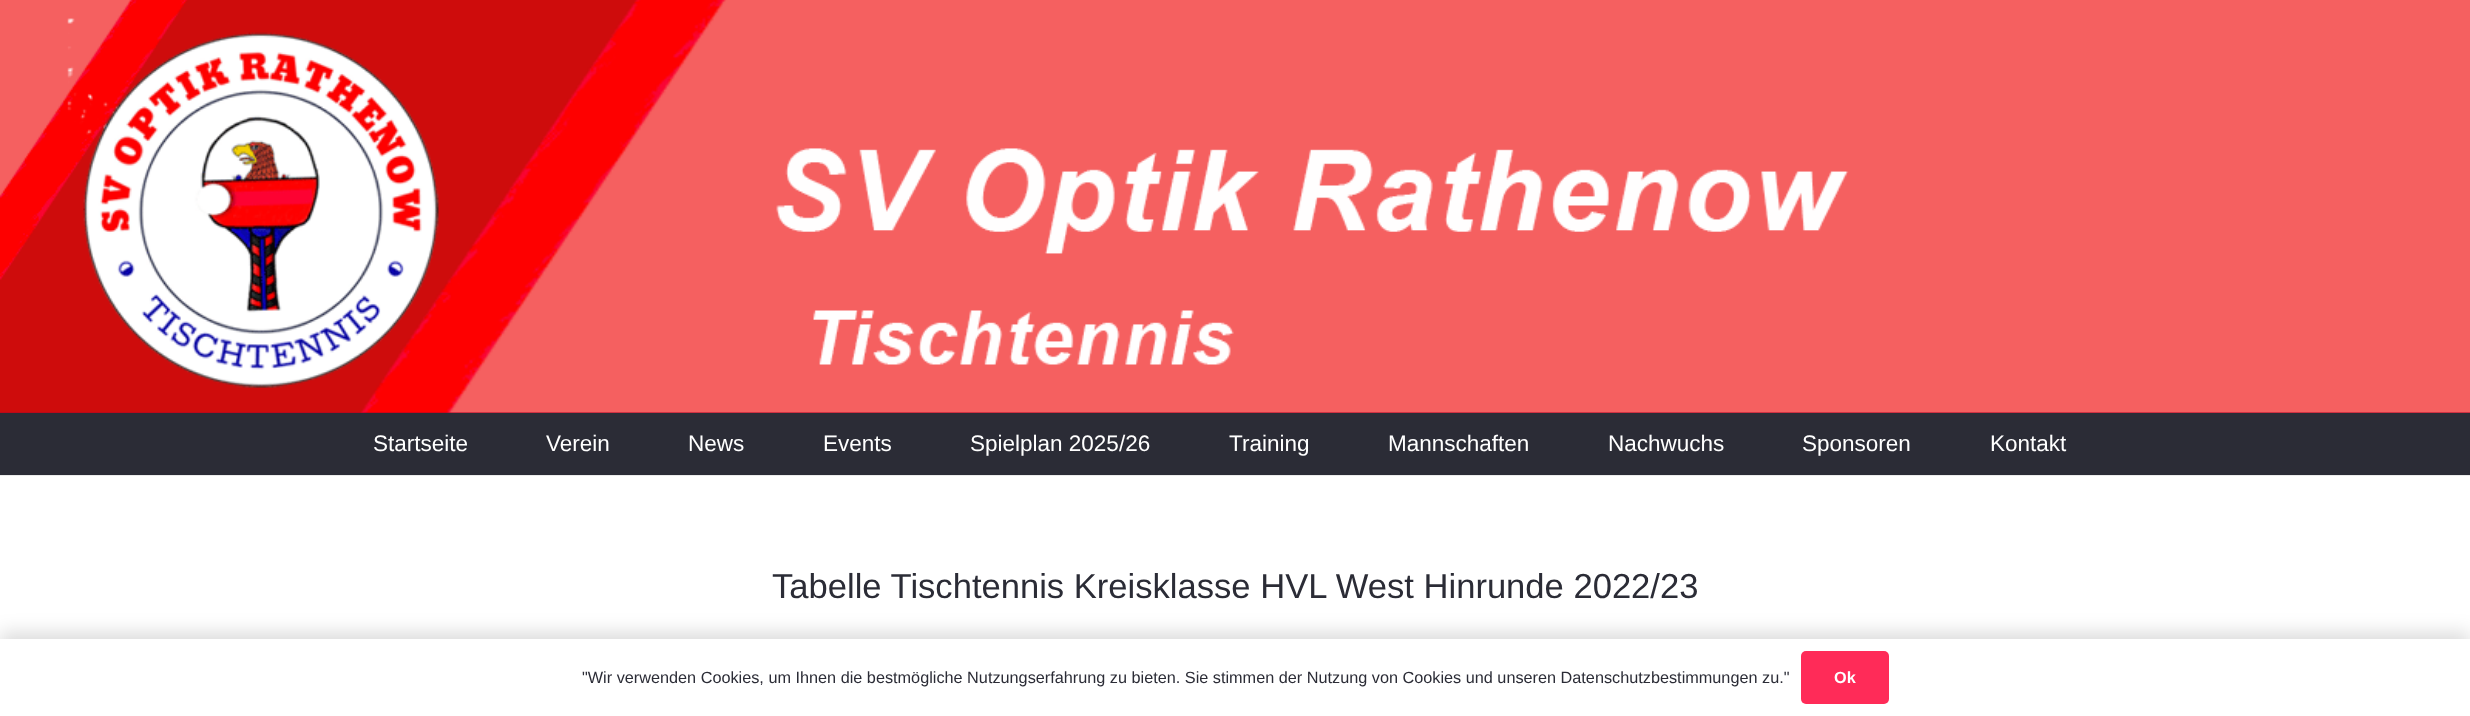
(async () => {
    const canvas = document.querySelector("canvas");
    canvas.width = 2470;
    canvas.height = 716;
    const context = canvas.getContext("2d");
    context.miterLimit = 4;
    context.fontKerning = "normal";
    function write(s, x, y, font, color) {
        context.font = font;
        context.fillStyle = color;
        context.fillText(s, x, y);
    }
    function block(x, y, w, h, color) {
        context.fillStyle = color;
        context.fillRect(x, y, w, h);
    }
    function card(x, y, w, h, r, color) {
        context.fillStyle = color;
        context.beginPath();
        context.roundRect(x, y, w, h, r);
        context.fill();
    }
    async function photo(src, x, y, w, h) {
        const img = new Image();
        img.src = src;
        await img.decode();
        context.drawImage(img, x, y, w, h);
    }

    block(0, 0, 2470, 716, "rgb(255, 255, 255)");
    block(0, 412, 2470, 1, "rgb(171, 5, 38)");
    await photo("media/1.png", 0, 0, 2470, 413);
    block(0, 475, 2470, 1, "rgb(235, 235, 235)");
    block(0, 413, 2470, 62, "rgb(43, 44, 54)");
    write("Startseite", 373, 451, "22.5px Liberation Sans", "rgb(255, 255, 255)");
    write("Verein", 546, 451, "22.5px Liberation Sans", "rgb(255, 255, 255)");
    write("News", 688, 451, "22.5px Liberation Sans", "rgb(255, 255, 255)");
    write("Events", 823, 451, "22.5px Liberation Sans", "rgb(255, 255, 255)");
    write("Spielplan 2025/26", 970, 451, "22.5px Liberation Sans", "rgb(255, 255, 255)");
    write("Training", 1229, 451, "22.5px Liberation Sans", "rgb(255, 255, 255)");
    write("Mannschaften", 1388, 451, "22.5px Liberation Sans", "rgb(255, 255, 255)");
    write("Nachwuchs", 1608, 451, "22.5px Liberation Sans", "rgb(255, 255, 255)");
    write("Sponsoren", 1802, 451, "22.5px Liberation Sans", "rgb(255, 255, 255)");
    write("Kontakt", 1990, 451, "22.5px Liberation Sans", "rgb(255, 255, 255)");
    write("Tabelle Tischtennis Kreisklasse HVL West Hinrunde 2022/23", 772, 598, "34.6px Liberation Sans", "rgb(43, 44, 54)");
    context.fillStyle = "rgba(0, 0, 0, 0.15)";
    context.filter = "blur(9.5px)";
    context.beginPath();
    context.rect(0, 633, 2470, 77);
    context.fill();
    context.filter = "none";
    block(0, 639, 2470, 77, "rgb(255, 255, 255)");
    write("\"Wir verwenden Cookies, um Ihnen die bestmögliche Nutzungserfahrung zu bieten. Sie stimmen der Nutzung von Cookies und unseren Datenschutzbestimmungen zu.\"", 582, 683, "16.25px Liberation Sans", "rgb(43, 44, 54)");
    card(1801, 651, 88, 53, 5, "rgb(255, 43, 88)");
    write("Ok", 1834, 683, "bold 16.25px Liberation Sans", "rgb(255, 255, 255)");
})();
